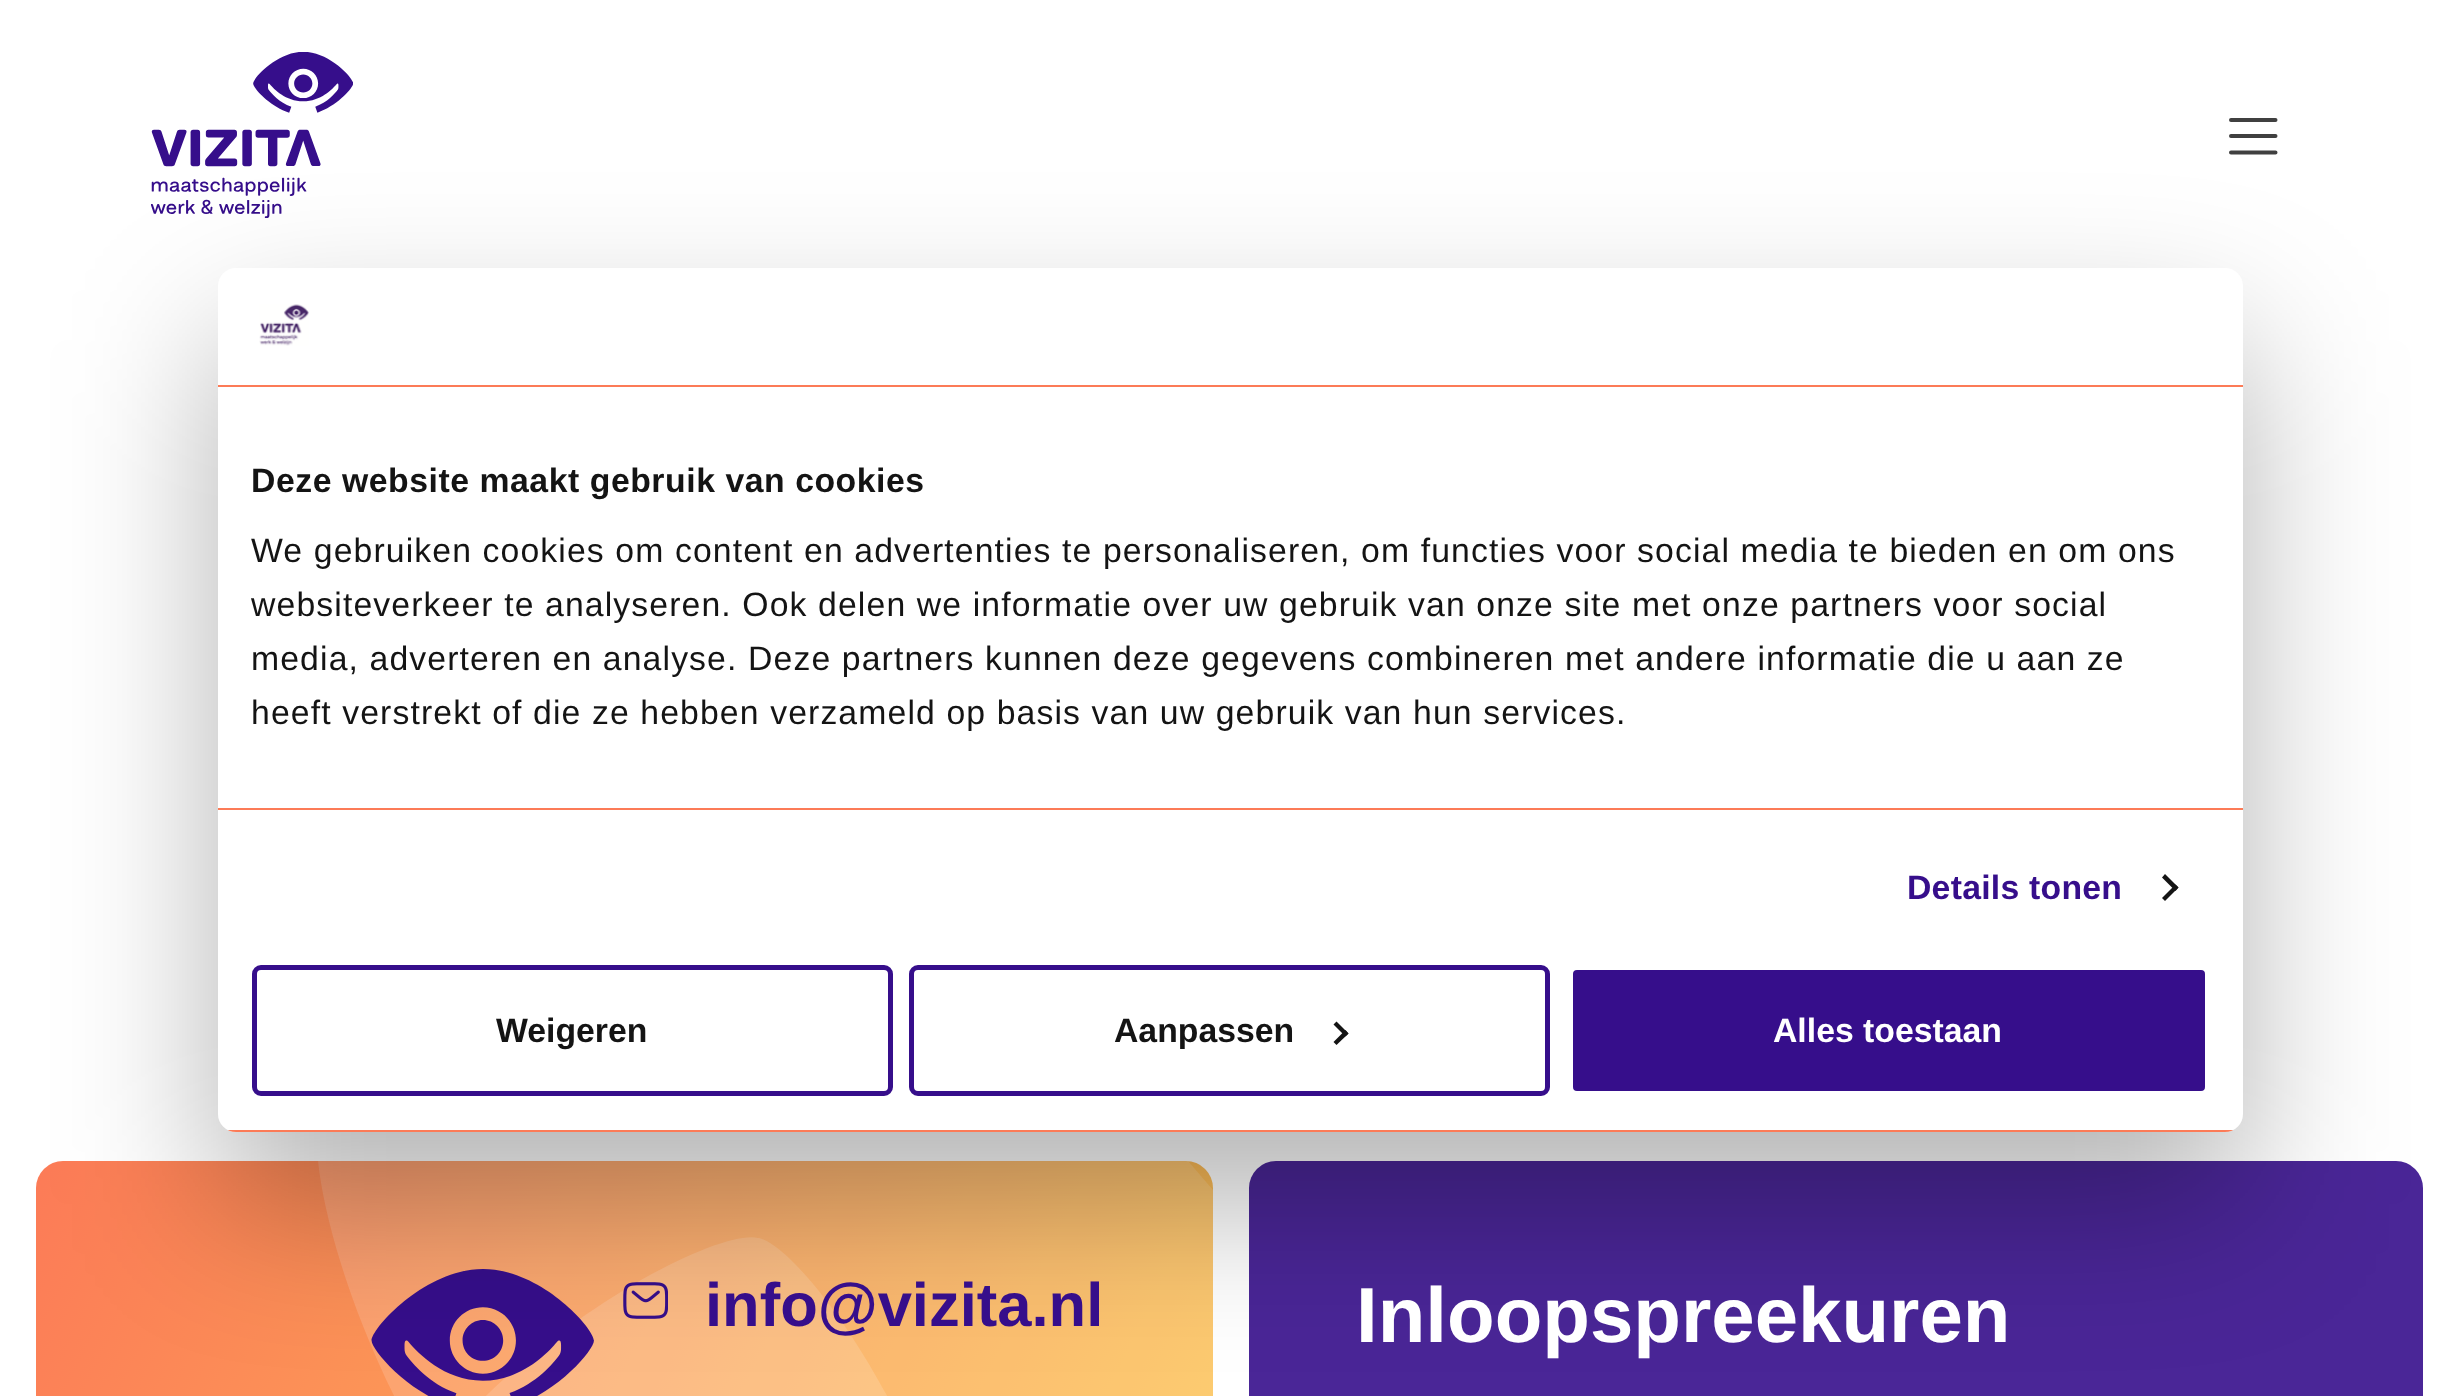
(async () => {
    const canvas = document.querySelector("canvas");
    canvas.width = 2458;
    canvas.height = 1396;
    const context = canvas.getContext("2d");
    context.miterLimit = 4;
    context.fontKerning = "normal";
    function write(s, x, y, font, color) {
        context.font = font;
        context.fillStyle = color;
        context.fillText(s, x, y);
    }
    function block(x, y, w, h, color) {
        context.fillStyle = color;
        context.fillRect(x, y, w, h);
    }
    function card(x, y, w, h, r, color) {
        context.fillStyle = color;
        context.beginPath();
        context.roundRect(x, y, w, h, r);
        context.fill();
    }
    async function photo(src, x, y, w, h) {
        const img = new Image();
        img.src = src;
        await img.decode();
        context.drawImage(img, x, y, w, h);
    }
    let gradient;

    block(0, 0, 2458, 1396, "rgb(255, 255, 255)");
    await photo("media/1.png", 151, 52, 202, 166);
    context.beginPath();
    context.moveTo(2231, 120);
    context.lineTo(2275.5, 120);
    context.moveTo(2231, 136);
    context.lineTo(2275.5, 136);
    context.moveTo(2231, 152.5);
    context.lineTo(2275.5, 152.5);
    context.strokeStyle = "rgb(64, 64, 64)";
    context.lineWidth = 4;
    context.lineCap = "round";
    context.stroke();
    gradient = context.createLinearGradient(-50, 1333, 1298, 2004);
    gradient.addColorStop(0, "rgb(252, 123, 87)");
    gradient.addColorStop(1, "rgb(252, 215, 87)");
    context.fillStyle = gradient;
    context.beginPath();
    context.roundRect(36, 1161, 1177, 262, 27);
    context.fill();
    context.fillStyle = "rgba(255, 255, 255, 0.15)";
    context.beginPath();
    context.moveTo(318, 1161);
    context.lineTo(1188, 1161);
    context.lineTo(1213, 1190);
    context.lineTo(1213, 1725);
    context.bezierCurveTo(1066, 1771, 854, 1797, 686, 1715);
    context.bezierCurveTo(450, 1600, 331, 1287, 318, 1161);
    context.closePath();
    context.fill();
    context.beginPath();
    context.moveTo(759, 1238);
    context.lineTo(758, 1238);
    context.bezierCurveTo(702, 1225, 378, 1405, 317, 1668);
    context.bezierCurveTo(273, 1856, 369, 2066, 448, 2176);
    context.lineTo(695, 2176);
    context.bezierCurveTo(805, 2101, 931, 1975, 967, 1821);
    context.bezierCurveTo(1028, 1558, 816, 1251, 759, 1238);
    context.closePath();
    context.fill();
    await photo("media/3.png", 371, 1269, 223, 127);
    await photo("media/4.png", 623, 1282, 45, 37);
    card(1249, 1161, 1174, 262, 27, "rgb(74, 38, 151)");
    context.fillStyle = "rgba(0, 0, 0, 0.3)";
    context.filter = "blur(76.5px)";
    context.beginPath();
    context.roundRect(218, 340, 2025, 864, 18);
    context.fill();
    context.filter = "none";
    card(218, 268, 2025, 864, 18, "rgb(255, 255, 255)");
    block(218, 385, 2025, 2, "rgb(252, 123, 87)");
    await photo("media/2.png", 259, 304, 50, 42);
    block(218, 808, 2025, 2, "rgb(252, 123, 87)");
    context.letterSpacing = "0.55px";
    write("Deze website maakt gebruik van cookies", 251, 492, "bold 33.75px Liberation Sans", "rgb(20, 20, 20)");
    context.letterSpacing = "1.12px";
    write("We gebruiken cookies om content en advertenties te personaliseren, om functies voor social media te bieden en om ons", 251, 562, "33.75px Liberation Sans", "rgb(20, 20, 20)");
    write("websiteverkeer te analyseren. Ook delen we informatie over uw gebruik van onze site met onze partners voor social", 251, 616, "33.75px Liberation Sans", "rgb(20, 20, 20)");
    write("media, adverteren en analyse. Deze partners kunnen deze gegevens combineren met andere informatie die u aan ze", 251, 670, "33.75px Liberation Sans", "rgb(20, 20, 20)");
    write("heeft verstrekt of die ze hebben verzameld op basis van uw gebruik van hun services.", 251, 724, "33.75px Liberation Sans", "rgb(20, 20, 20)");
    context.letterSpacing = "0.25px";
    write("Details tonen", 1907, 899, "bold 33.75px Liberation Sans", "rgb(54, 14, 139)");
    context.fillStyle = "rgb(20, 20, 20)";
    context.beginPath();
    context.moveTo(2165, 874);
    context.lineTo(2178.5, 887.5);
    context.lineTo(2175.5, 891);
    context.lineTo(2162, 877.5);
    context.closePath();
    context.fill();
    context.beginPath();
    context.moveTo(2175.5, 884.5);
    context.lineTo(2178.5, 887.5);
    context.lineTo(2165, 901);
    context.lineTo(2162, 898);
    context.closePath();
    context.fill();
    context.save();
    context.beginPath();
    context.roundRect(218, 268, 2025, 864, 18);
    context.clip();
    block(228, 1130, 2005, 2, "rgb(252, 123, 87)");
    context.restore();
    context.beginPath();
    context.roundRect(254.5, 967.5, 636, 126, 6.5);
    context.strokeStyle = "rgb(54, 14, 139)";
    context.lineWidth = 5;
    context.stroke();
    context.letterSpacing = "0px";
    write("Weigeren", 496, 1042, "bold 33.75px Liberation Sans", "rgb(20, 20, 20)");
    context.beginPath();
    context.roundRect(911.5, 967.5, 636, 126, 6.5);
    context.stroke();
    write("Aanpassen", 1114, 1042, "bold 33.75px Liberation Sans", "rgb(20, 20, 20)");
    context.beginPath();
    context.moveTo(1336.5, 1021.5);
    context.lineTo(1348.5, 1033.5);
    context.lineTo(1345.5, 1036.5);
    context.lineTo(1333.5, 1024.5);
    context.closePath();
    context.fill();
    context.beginPath();
    context.moveTo(1345.5, 1030);
    context.lineTo(1348.5, 1033.5);
    context.lineTo(1336.5, 1045);
    context.lineTo(1333.5, 1042);
    context.closePath();
    context.fill();
    context.fillStyle = "rgb(54, 14, 139)";
    context.beginPath();
    context.roundRect(1570.5, 967.5, 637, 126, 6.5);
    context.fill();
    context.strokeStyle = "rgb(255, 255, 255)";
    context.stroke();
    write("Alles toestaan", 1773, 1042, "bold 33.75px Liberation Sans", "rgb(255, 255, 255)");
    write("info@vizita.nl", 705, 1326, "bold 61.5px Liberation Sans", "rgb(54, 14, 139)");
    write("Inloopspreekuren", 1356, 1342, "bold 78px Liberation Sans", "rgb(255, 255, 255)");
})();
